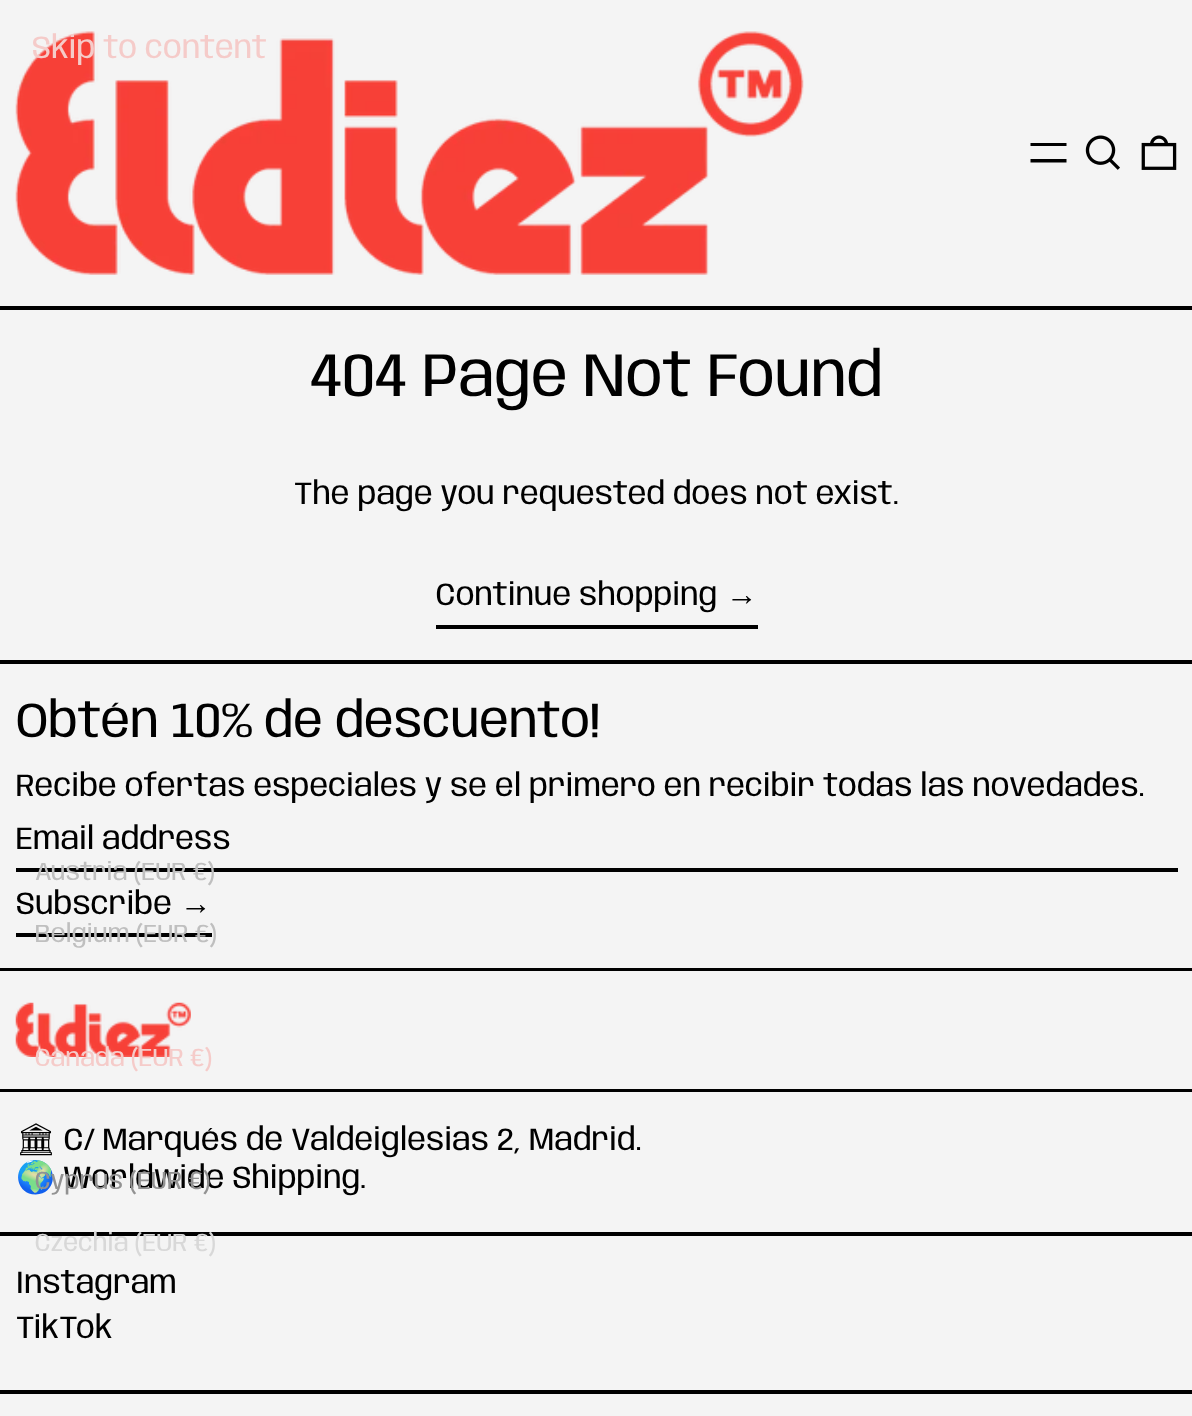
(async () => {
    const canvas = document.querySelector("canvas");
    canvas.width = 1192;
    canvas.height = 1416;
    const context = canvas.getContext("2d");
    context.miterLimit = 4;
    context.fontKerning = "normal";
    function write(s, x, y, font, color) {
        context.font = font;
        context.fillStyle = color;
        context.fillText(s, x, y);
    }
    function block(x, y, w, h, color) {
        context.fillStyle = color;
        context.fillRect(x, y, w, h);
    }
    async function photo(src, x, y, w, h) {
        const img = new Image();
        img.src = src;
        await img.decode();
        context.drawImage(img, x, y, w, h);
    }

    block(0, 0, 1192, 1416, "rgb(244, 244, 244)");
    block(0, 306, 1192, 4, "rgb(0, 0, 0)");
    await photo("media/1.png", 15, 31, 789, 244);
    context.beginPath();
    context.moveTo(1066.5, 159);
    context.lineTo(1066.5, 162.5);
    context.lineTo(1030.5, 162.5);
    context.lineTo(1030.5, 159);
    context.closePath();
    context.moveTo(1066.5, 143);
    context.lineTo(1066.5, 146);
    context.lineTo(1030.5, 146);
    context.lineTo(1030.5, 143);
    context.closePath();
    context.fill("evenodd");
    await photo("media/2.png", 1085, 135, 35, 35);
    await photo("media/3.png", 1141, 135, 36, 35);
    write("Skip to content", 32, 58, "31.5px Anybody", "rgb(245, 203, 201)");
    write("404 Page Not Found", 310, 396, "61.5px Anybody", "rgb(0, 0, 0)");
    write("The page you requested does not exist.", 294, 504, "31.5px Anybody", "rgb(0, 0, 0)");
    block(436, 625, 322, 4, "rgb(0, 0, 0)");
    write("Continue shopping", 436, 605, "31.5px Anybody", "rgb(0, 0, 0)");
    write("→", 726, 605, "31.5px Liberation Sans", "rgb(0, 0, 0)");
    block(0, 660, 1192, 4, "rgb(0, 0, 0)");
    write("Obtén 10% de descuento!", 16, 737, "49.25px Anybody", "rgb(0, 0, 0)");
    write("Recibe ofertas especiales y se el primero en recibir todas las novedades.", 16, 796, "31.5px Anybody", "rgb(0, 0, 0)");
    block(16, 868, 1162, 4, "rgb(0, 0, 0)");
    write("Email address", 16, 849, "31.5px Anybody", "rgb(0, 0, 0)");
    block(16, 933, 196, 4, "rgb(0, 0, 0)");
    write("Subscribe", 16, 914, "31.5px Anybody", "rgb(0, 0, 0)");
    write("→", 180, 914, "31.5px Liberation Sans", "rgb(0, 0, 0)");
    block(0, 1390, 1192, 4, "rgb(0, 0, 0)");
    write("Austria (EUR €)", 35, 880, "25.25px Anybody", "rgb(191, 191, 191)");
    write("Belgium (EUR €)", 35, 942, "25.25px Anybody", "rgb(191, 191, 191)");
    await photo("media/4.png", 15, 1002, 176, 55);
    write("Canada (EUR €)", 35, 1066, "25.25px Anybody", "rgb(245, 203, 201)");
    block(0, 1089, 1192, 147, "rgb(0, 0, 0)");
    block(0, 1092, 1192, 140, "rgb(244, 244, 244)");
    write("🌍", 16, 1188, "31.5px Noto Color Emoji", "rgb(0, 0, 0)");
    write("Worldwide Shipping.", 63, 1188, "31.5px Anybody", "rgb(0, 0, 0)");
    write("Cyprus (EUR €)", 35, 1189, "25.25px Anybody", "rgb(146, 146, 146)");
    write("Czechia (EUR €)", 35, 1251, "25.25px Anybody", "rgb(216, 216, 216)");
    block(0, 968, 1192, 3, "rgb(0, 0, 0)");
    write("🏛", 16, 1150, "31.5px Noto Emoji", "rgb(0, 0, 0)");
    write("C/ Marqués de Valdeiglesias 2, Madrid.", 64, 1150, "31.5px Anybody", "rgb(0, 0, 0)");
    write("Instagram", 16, 1293, "31.5px Anybody", "rgb(0, 0, 0)");
    write("TikTok", 16, 1338, "31.5px Anybody", "rgb(0, 0, 0)");
})();
